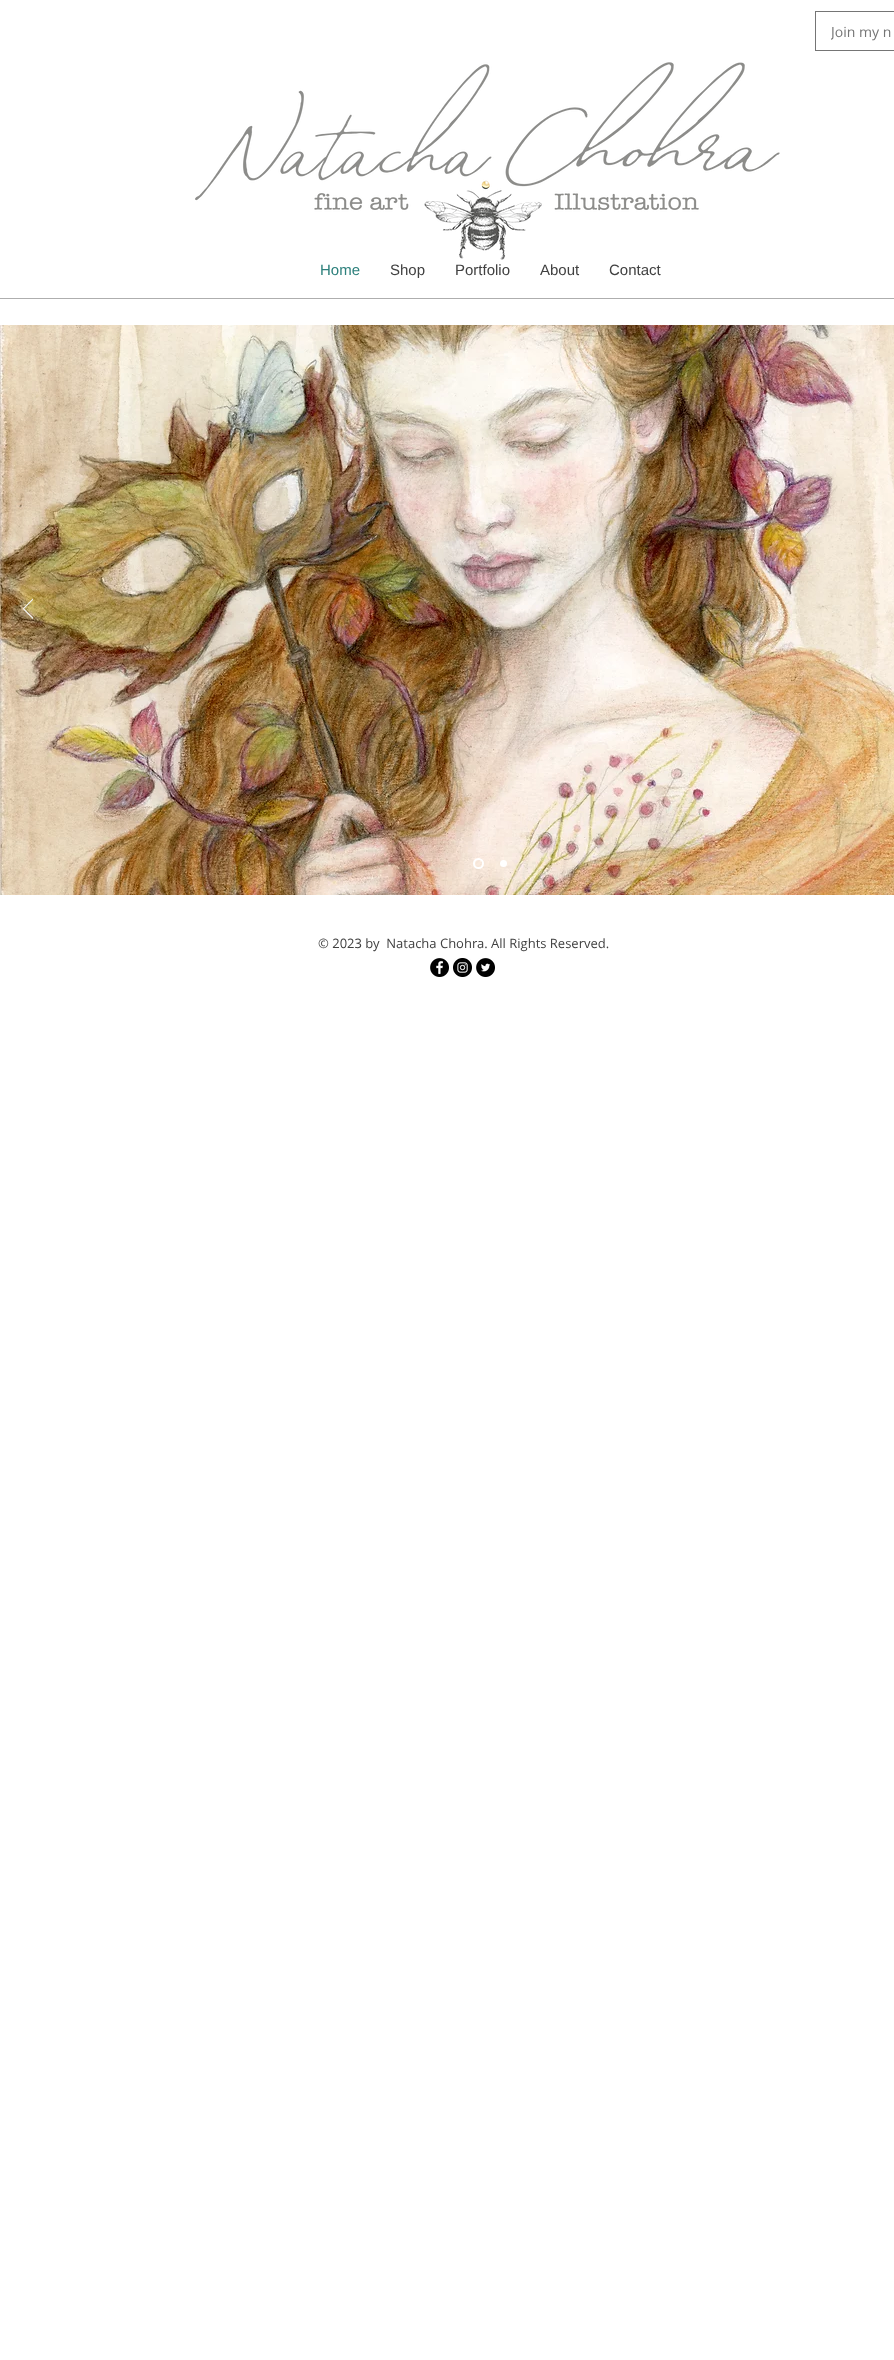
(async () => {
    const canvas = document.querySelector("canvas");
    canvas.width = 894;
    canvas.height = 2360;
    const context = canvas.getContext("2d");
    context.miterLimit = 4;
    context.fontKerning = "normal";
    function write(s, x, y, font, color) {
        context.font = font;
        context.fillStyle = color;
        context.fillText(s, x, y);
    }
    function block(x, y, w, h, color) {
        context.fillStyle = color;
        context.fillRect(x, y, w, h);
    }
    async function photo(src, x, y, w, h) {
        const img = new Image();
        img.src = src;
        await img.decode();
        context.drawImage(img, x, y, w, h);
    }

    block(0, 0, 894, 2360, "rgb(255, 255, 255)");
    context.strokeStyle = "rgb(117, 117, 117)";
    context.strokeRect(815.5, 11.5, 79, 39);
    context.save();
    context.beginPath();
    context.rect(831, 22, 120, 19);
    context.clip();
    write("Join my n", 831, 37, "14px Open Sans", "rgb(117, 117, 117)");
    context.restore();
    await photo("media/1.png", 195, 62, 585, 198);
    write("Home", 320, 275, "15px Liberation Sans", "rgb(45, 128, 124)");
    write("Shop", 390, 275, "15px Liberation Sans", "rgb(65, 65, 65)");
    write("Portfolio", 455, 275, "15px Liberation Sans", "rgb(65, 65, 65)");
    write("About", 540, 275, "15px Liberation Sans", "rgb(65, 65, 65)");
    write("Contact", 609, 275, "15px Liberation Sans", "rgb(65, 65, 65)");
    block(0, 298, 894, 1, "rgb(174, 174, 174)");
    await photo("media/2.png", 0, 325, 894, 570);
    await photo("media/3.png", 23, 598, 10, 21);
    context.beginPath();
    context.arc(478.5, 863.5, 4.5, 0, Math.PI * 2);
    context.strokeStyle = "rgb(255, 255, 255)";
    context.lineWidth = 2;
    context.stroke();
    context.fillStyle = "rgb(255, 255, 255)";
    context.beginPath();
    context.arc(503.5, 863.5, 3.5, 0, Math.PI * 2);
    context.fill();
    write("© 2023 by  Natacha Chohra. All Rights Reserved.", 318, 948, "13px Open Sans", "rgb(65, 65, 65)");
    await photo("media/4.png", 430, 958, 19, 19);
    await photo("media/5.png", 453, 958, 19, 19);
    await photo("media/6.png", 476, 958, 19, 19);
})();
